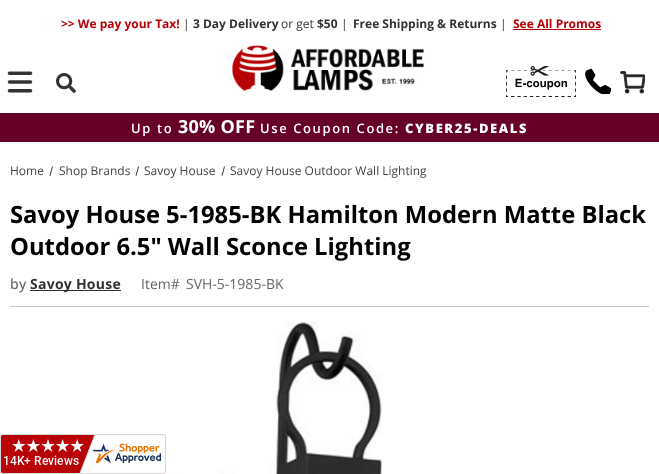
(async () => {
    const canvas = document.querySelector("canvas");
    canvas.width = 659;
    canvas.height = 474;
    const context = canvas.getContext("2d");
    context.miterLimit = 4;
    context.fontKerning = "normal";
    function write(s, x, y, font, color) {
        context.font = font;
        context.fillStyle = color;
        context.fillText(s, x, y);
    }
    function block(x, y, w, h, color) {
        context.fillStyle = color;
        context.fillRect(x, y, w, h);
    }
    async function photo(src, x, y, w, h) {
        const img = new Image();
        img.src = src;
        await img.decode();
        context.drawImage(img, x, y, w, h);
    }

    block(0, 0, 659, 474, "rgb(255, 255, 255)");
    write(">> We pay your Tax!", 61, 28, "bold 12px Open Sans", "rgb(184, 1, 6)");
    write("|", 183, 28, "12px Open Sans", "rgb(51, 51, 51)");
    write("3 Day Delivery", 193, 28, "bold 12px Open Sans", "rgb(51, 51, 51)");
    write("or get", 281, 28, "12px Open Sans", "rgb(51, 51, 51)");
    write("$50", 317, 28, "bold 12px Open Sans", "rgb(51, 51, 51)");
    write("|", 341, 28, "12px Open Sans", "rgb(51, 51, 51)");
    write("Free Shipping & Returns", 353, 28, "bold 12px Open Sans", "rgb(51, 51, 51)");
    write("|", 500, 28, "12px Open Sans", "rgb(51, 51, 51)");
    write("See All Promos", 513, 28, "bold 12px Open Sans", "rgb(184, 1, 6)");
    block(513, 29, 88, 1, "rgb(184, 1, 6)");
    await photo("media/1.png", 7, 71, 26, 22);
    await photo("media/2.png", 56, 73, 20, 20);
    await photo("media/3.png", 231, 45, 194, 47);
    await photo("media/4.png", 506, 66, 70, 31);
    await photo("media/5.png", 585, 68, 26, 26);
    await photo("media/6.png", 620, 71, 25, 23);
    block(0, 113, 659, 29, "rgb(102, 0, 38)");
    context.letterSpacing = "1.6px";
    write("Up to", 131, 133, "600 13px Open Sans", "rgb(255, 255, 255)");
    context.letterSpacing = "0.25px";
    write("30% OFF", 178, 133, "bold 18px Open Sans", "rgb(255, 255, 255)");
    context.letterSpacing = "1.6px";
    write("Use Coupon Code:", 260, 133, "600 13px Open Sans", "rgb(255, 255, 255)");
    write("CYBER25-DEALS", 405, 133, "800 13px Open Sans", "rgb(255, 255, 255)");
    context.letterSpacing = "0px";
    write("Home", 10, 175, "12px Open Sans", "rgb(68, 68, 68)");
    context.beginPath();
    context.moveTo(52, 166.5);
    context.lineTo(53, 166.5);
    context.lineTo(50.5, 176);
    context.lineTo(49.5, 175.5);
    context.closePath();
    context.fill();
    write("Shop Brands", 59, 175, "12px Open Sans", "rgb(68, 68, 68)");
    context.beginPath();
    context.moveTo(138, 166.5);
    context.lineTo(139, 166.5);
    context.lineTo(136.5, 176);
    context.lineTo(135.5, 175.5);
    context.closePath();
    context.fill();
    write("Savoy House", 144, 175, "12px Open Sans", "rgb(68, 68, 68)");
    context.beginPath();
    context.moveTo(224, 166.5);
    context.lineTo(225, 166.5);
    context.lineTo(222.5, 176);
    context.lineTo(221.5, 175.5);
    context.closePath();
    context.fill();
    write("Savoy House Outdoor Wall Lighting", 230, 175, "12px Open Sans", "rgb(68, 68, 68)");
    write("Savoy House 5-1985-BK Hamilton Modern Matte Black", 10, 223, "bold 23.8px Open Sans", "rgb(0, 0, 0)");
    write("Outdoor 6.5\" Wall Sconce Lighting", 10, 255, "bold 23.8px Open Sans", "rgb(0, 0, 0)");
    context.letterSpacing = "0.25px";
    write("by", 10, 289, "500 14px Open Sans", "rgb(102, 102, 102)");
    block(30, 290, 91, 1, "rgb(51, 51, 51)");
    write("Savoy House", 30, 289, "bold 14px Open Sans", "rgb(51, 51, 51)");
    context.letterSpacing = "0px";
    write("Item#", 141, 289, "14px Open Sans", "rgb(102, 102, 102)");
    write("SVH-5-1985-BK", 186, 289, "14px Open Sans", "rgb(102, 102, 102)");
    block(10, 306, 639, 1, "rgb(199, 199, 199)");
    await photo("media/7.png", 216, 321, 167, 153);
    await photo("media/8.png", 0, 434, 166, 40);
})();
